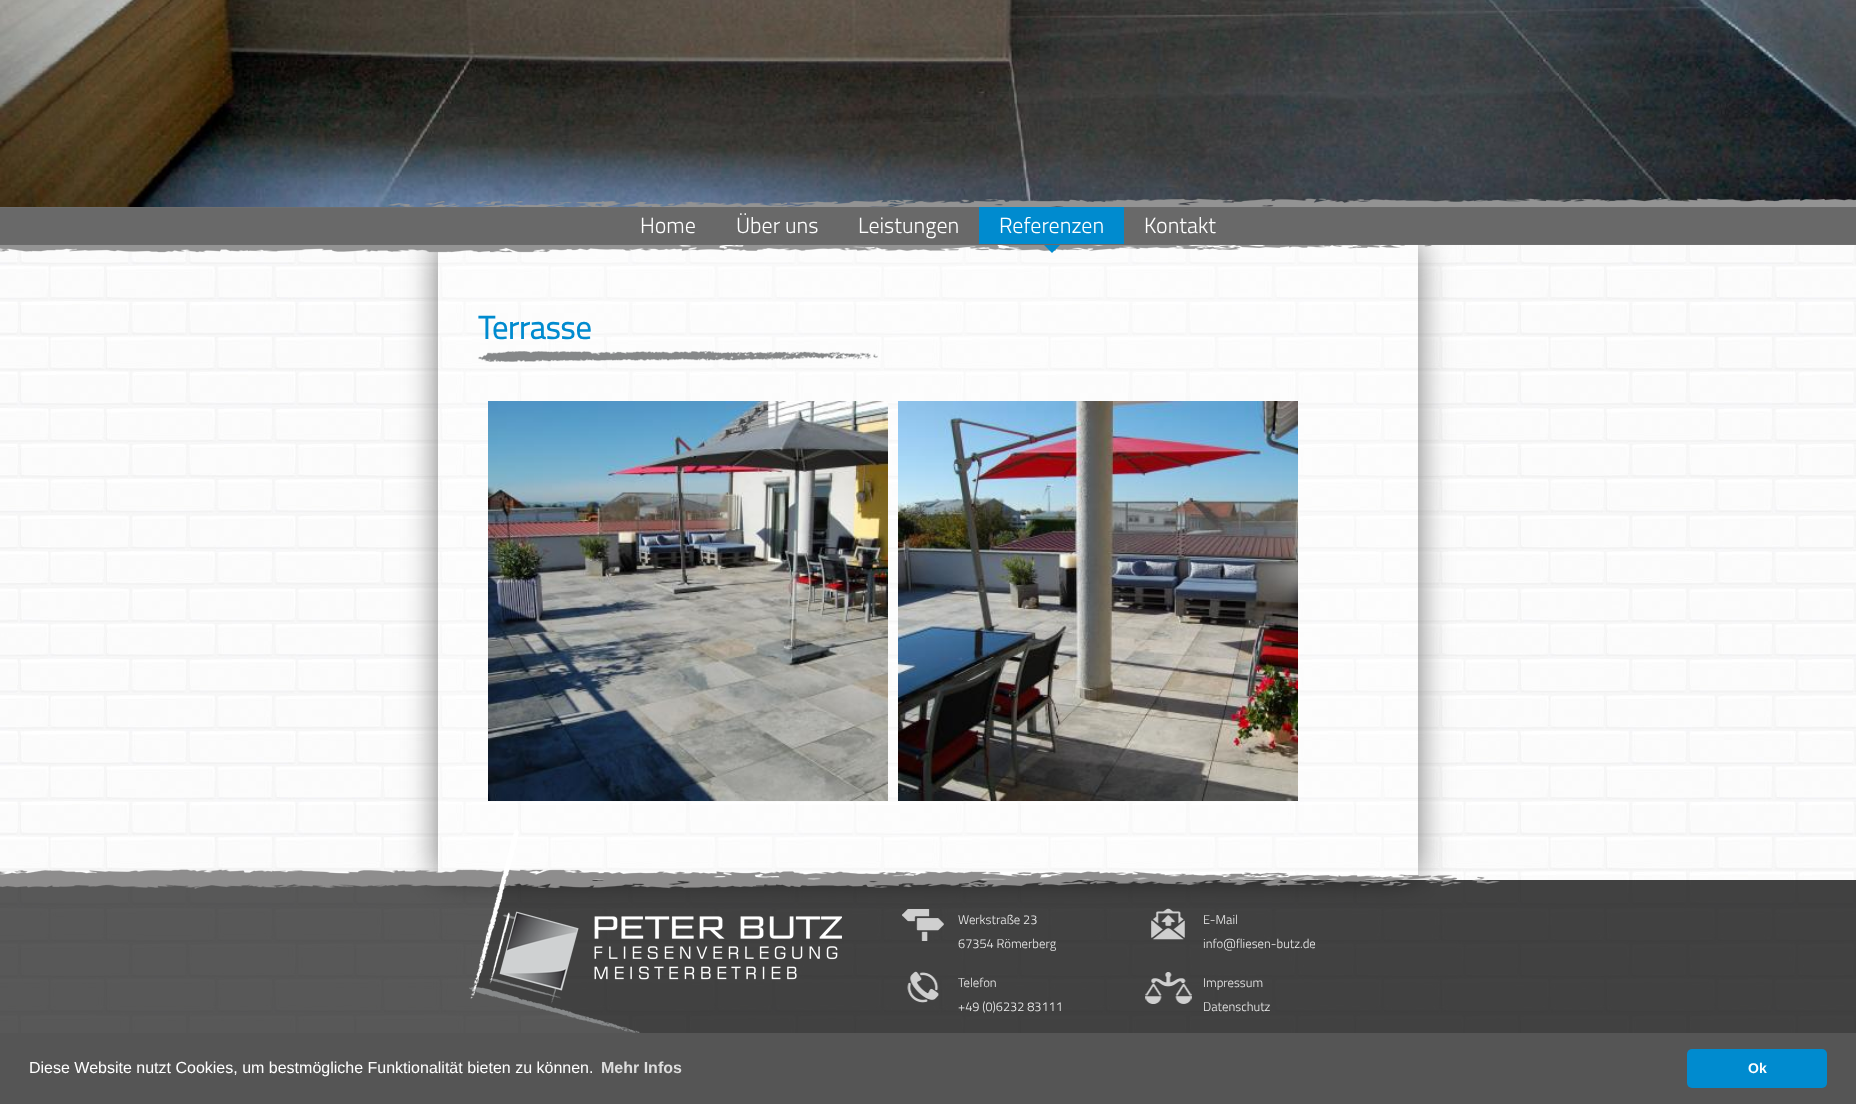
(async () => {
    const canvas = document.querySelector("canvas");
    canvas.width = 1856;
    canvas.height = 1104;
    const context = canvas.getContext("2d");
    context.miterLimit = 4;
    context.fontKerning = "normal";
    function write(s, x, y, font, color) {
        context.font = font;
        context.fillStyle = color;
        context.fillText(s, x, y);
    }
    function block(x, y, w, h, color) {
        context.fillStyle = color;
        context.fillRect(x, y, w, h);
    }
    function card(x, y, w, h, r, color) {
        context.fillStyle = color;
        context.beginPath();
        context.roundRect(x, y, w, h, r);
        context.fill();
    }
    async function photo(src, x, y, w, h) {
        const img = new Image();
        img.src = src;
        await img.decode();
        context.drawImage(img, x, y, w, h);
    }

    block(0, 0, 1856, 1104, "rgb(255, 255, 255)");
    await photo("media/1.png", 0, 207, 1856, 826);
    context.save();
    context.beginPath();
    context.moveTo(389, 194);
    context.lineTo(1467, 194);
    context.lineTo(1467, 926);
    context.lineTo(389, 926);
    context.closePath();
    context.moveTo(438, 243);
    context.lineTo(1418, 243);
    context.lineTo(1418, 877);
    context.lineTo(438, 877);
    context.closePath();
    context.clip("evenodd");
    context.fillStyle = "rgb(119, 119, 119)";
    context.filter = "blur(16px)";
    context.beginPath();
    context.rect(438, 243, 980, 634);
    context.fill();
    context.filter = "none";
    context.restore();
    await photo("media/2.png", 0, 0, 1856, 207);
    block(438, 244, 980, 633, "rgba(255, 255, 255, 0.3)");
    await photo("media/3.png", 0, 197, 1856, 56);
    block(620, 207, 27, 1, "rgb(105, 105, 105)");
    write("Home", 640, 233, "300 22px Titillium Web", "rgb(255, 255, 255)");
    block(732, 207, 103, 1, "rgb(105, 105, 105)");
    write("Über uns", 736, 233, "300 22px Titillium Web", "rgb(255, 255, 255)");
    block(882, 207, 10, 1, "rgb(105, 105, 105)");
    write("Leistungen", 858, 233, "300 22px Titillium Web", "rgb(255, 255, 255)");
    block(979, 207, 145, 37, "rgb(0, 139, 207)");
    write("Referenzen", 999, 233, "300 22px Titillium Web", "rgb(255, 255, 255)");
    context.fillStyle = "rgb(0, 139, 207)";
    context.beginPath();
    context.moveTo(1044, 245);
    context.lineTo(1060, 245);
    context.lineTo(1052, 253);
    context.closePath();
    context.fill();
    write("Kontakt", 1144, 233, "300 22px Titillium Web", "rgb(255, 255, 255)");
    write("Terrasse", 478, 339, "bold 32px Titillium Web", "rgb(0, 139, 207)");
    await photo("media/4.png", 478, 351, 400, 11);
    await photo("media/5.png", 488, 401, 400, 400);
    await photo("media/6.png", 898, 401, 400, 400);
    await photo("media/7.png", 0, 829, 1856, 204);
    await photo("media/8.png", 902, 909, 42, 32);
    write("Werkstraße 23", 958, 924, "300 12.75px Titillium Web", "rgb(238, 238, 238)");
    write("67354 Römerberg", 958, 948, "300 12.75px Titillium Web", "rgb(238, 238, 238)");
    await photo("media/9.png", 907, 971, 32, 32);
    write("Telefon", 958, 987, "300 12.75px Titillium Web", "rgb(238, 238, 238)");
    write("+49 (0)6232 83111", 958, 1011, "300 12.75px Titillium Web", "rgb(238, 238, 238)");
    await photo("media/10.png", 1151, 908, 34, 32);
    write("E-Mail", 1203, 924, "300 12.75px Titillium Web", "rgb(238, 238, 238)");
    write("info@fliesen-butz.de", 1203, 948, "300 12.75px Titillium Web", "rgb(238, 238, 238)");
    await photo("media/11.png", 1145, 972, 47, 32);
    write("Impressum", 1203, 987, "300 12.75px Titillium Web", "rgb(238, 238, 238)");
    write("Datenschutz", 1203, 1011, "300 12.75px Titillium Web", "rgb(238, 238, 238)");
    block(0, 1033, 1856, 71, "rgb(85, 85, 85)");
    write("Diese Website nutzt Cookies, um bestmögliche Funktionalität bieten zu können.", 29, 1073, "16px Liberation Sans", "rgb(255, 255, 255)");
    write("Mehr Infos", 601, 1073, "bold 16px Liberation Sans", "rgb(221, 221, 221)");
    card(1687, 1049, 140, 39, 5, "rgb(0, 139, 207)");
    write("Ok", 1748, 1073, "bold 14px Liberation Sans", "rgb(255, 255, 255)");
})();
